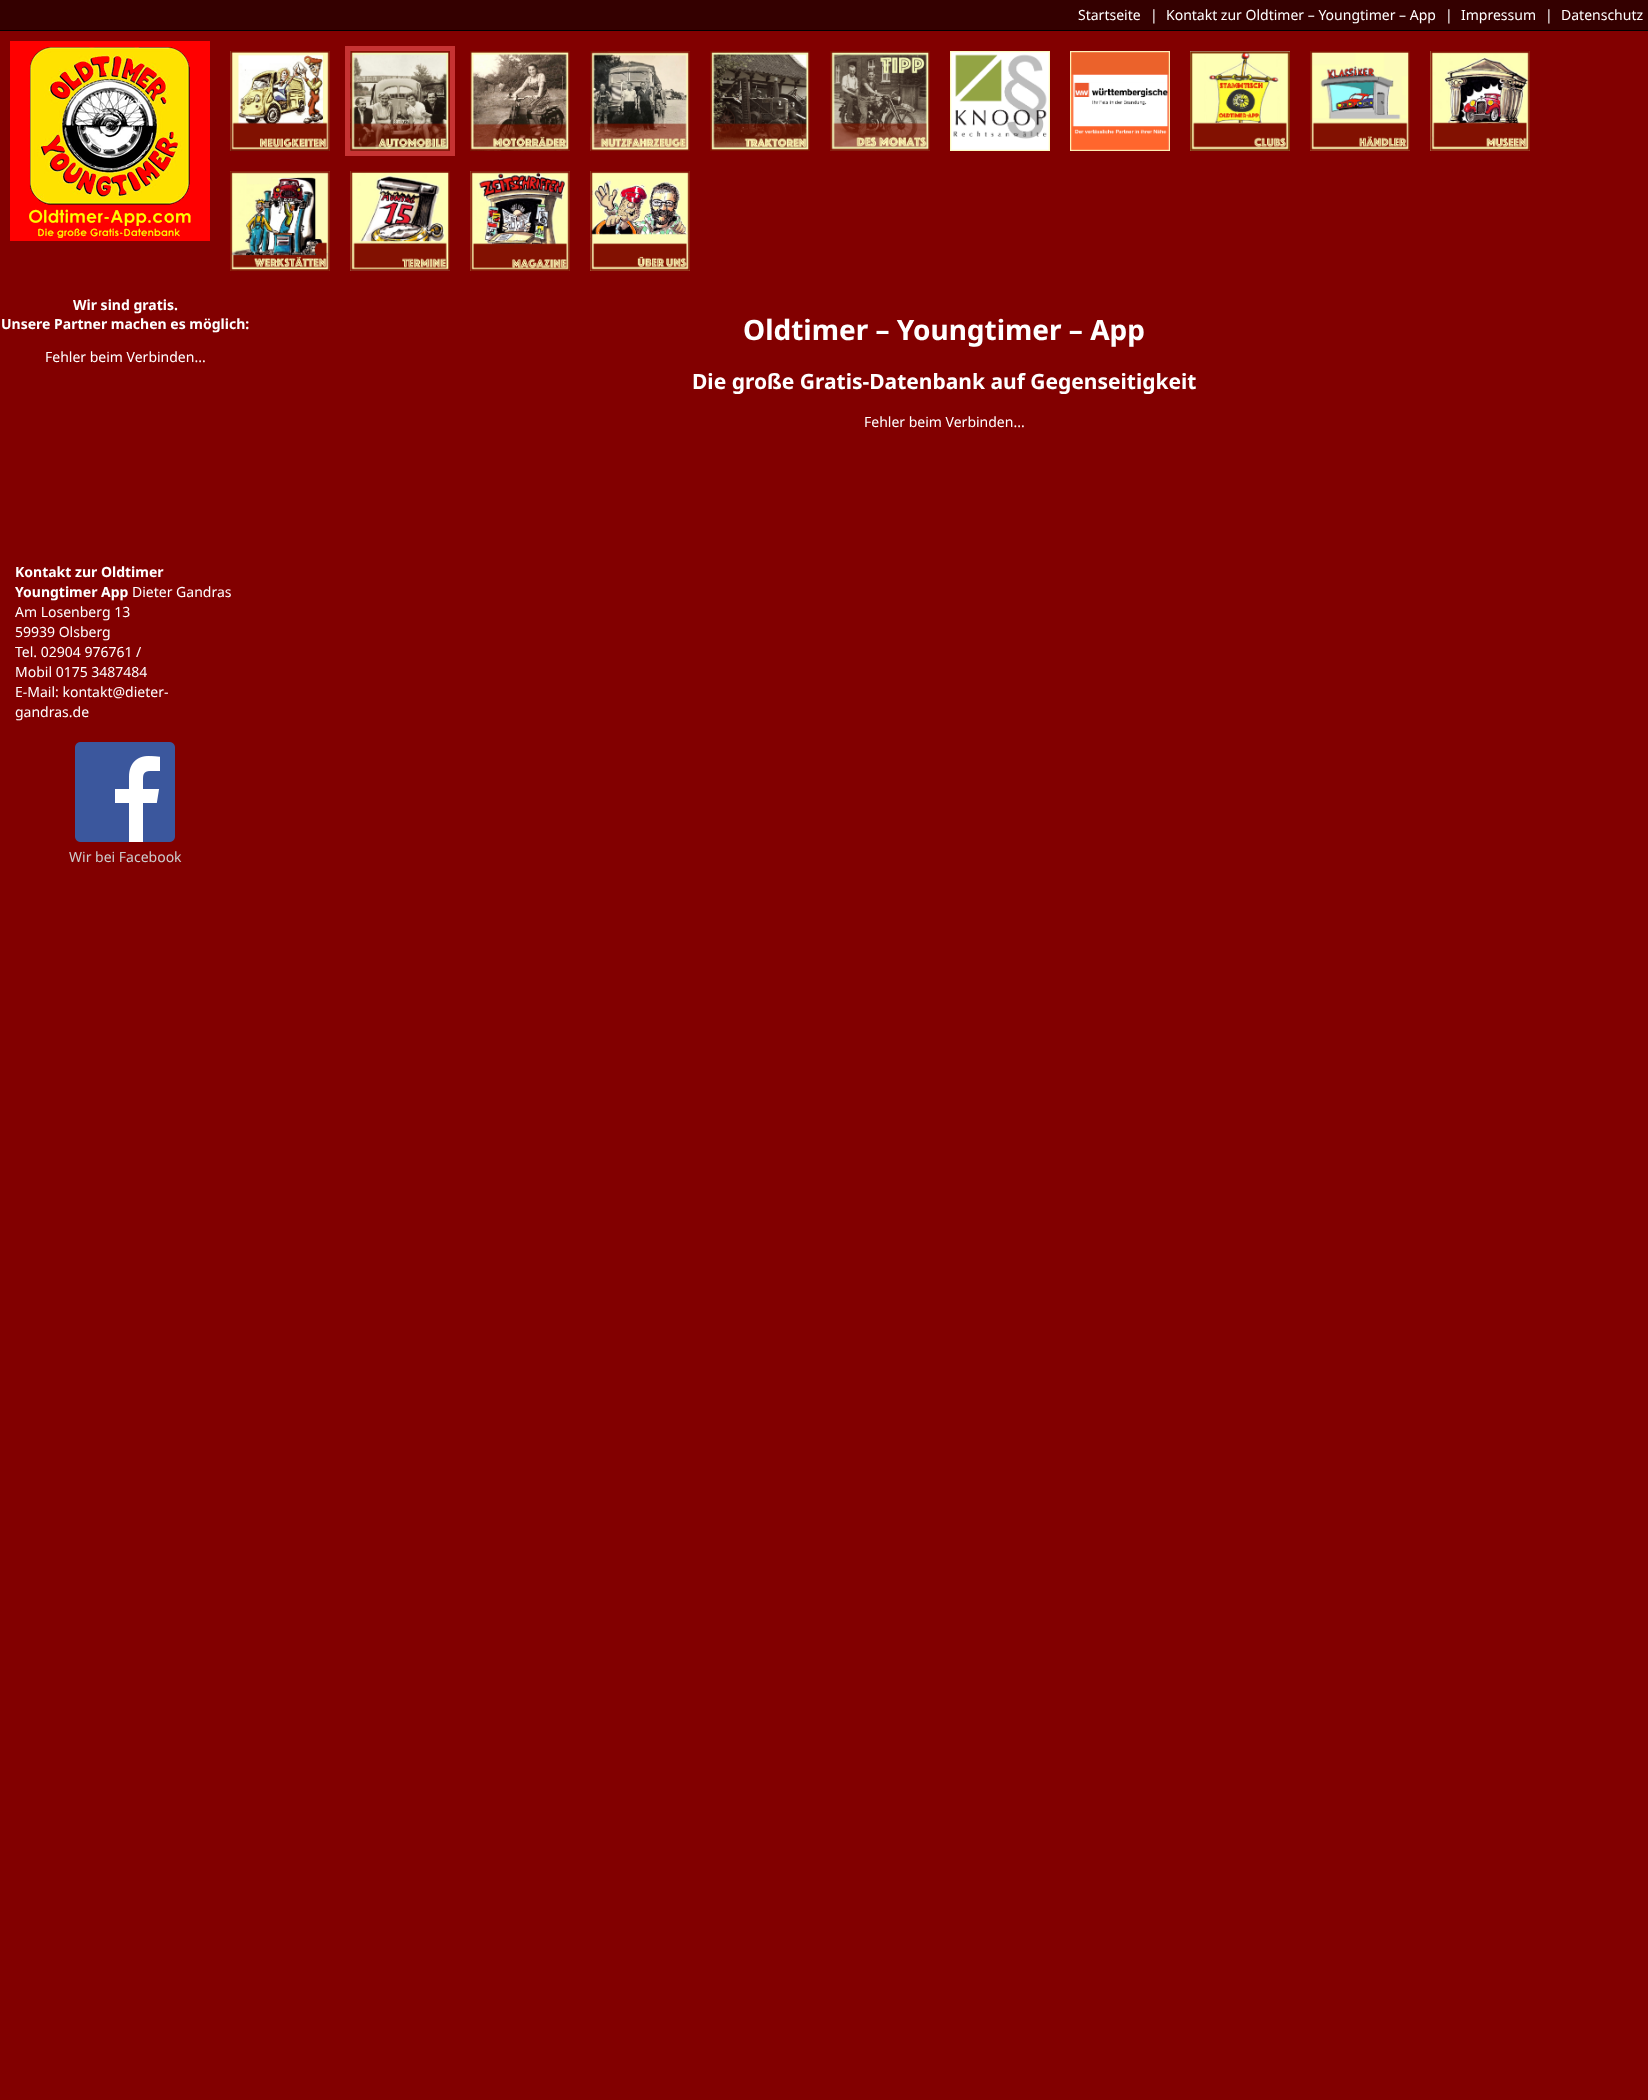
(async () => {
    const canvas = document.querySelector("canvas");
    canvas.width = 1648;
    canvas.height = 2100;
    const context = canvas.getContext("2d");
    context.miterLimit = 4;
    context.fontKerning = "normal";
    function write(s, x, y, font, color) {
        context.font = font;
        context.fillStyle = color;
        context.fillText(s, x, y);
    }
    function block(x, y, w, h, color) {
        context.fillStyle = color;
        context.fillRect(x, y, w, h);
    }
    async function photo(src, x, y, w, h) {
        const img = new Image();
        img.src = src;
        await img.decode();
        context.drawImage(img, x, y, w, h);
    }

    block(0, 0, 1648, 2100, "rgb(130, 0, 0)");
    block(0, 0, 1648, 30, "rgb(52, 0, 0)");
    block(0, 30, 1648, 1, "rgb(0, 0, 0)");
    write("Startseite", 1078, 20, "14px Noto Sans", "rgb(255, 255, 255)");
    write("|", 1150, 20, "14px Noto Sans", "rgb(255, 255, 255)");
    write("Kontakt zur Oldtimer – Youngtimer – App", 1166, 20, "14px Noto Sans", "rgb(255, 255, 255)");
    write("|", 1445, 20, "14px Noto Sans", "rgb(255, 255, 255)");
    write("Impressum", 1461, 20, "14px Noto Sans", "rgb(255, 255, 255)");
    write("|", 1545, 20, "14px Noto Sans", "rgb(255, 255, 255)");
    write("Datenschutz", 1561, 20, "14px Noto Sans", "rgb(255, 255, 255)");
    await photo("media/1.png", 10, 41, 200, 200);
    await photo("media/2.png", 230, 51, 100, 100);
    block(345, 46, 110, 110, "rgb(199, 51, 51)");
    await photo("media/3.png", 350, 51, 100, 100);
    await photo("media/4.png", 470, 51, 100, 100);
    await photo("media/5.png", 590, 51, 100, 100);
    await photo("media/6.png", 710, 51, 100, 100);
    await photo("media/7.png", 830, 51, 100, 100);
    await photo("media/8.png", 950, 51, 100, 100);
    await photo("media/9.png", 1070, 51, 100, 100);
    await photo("media/10.png", 1190, 51, 100, 100);
    await photo("media/11.png", 1310, 51, 100, 100);
    await photo("media/12.png", 1430, 51, 100, 100);
    await photo("media/13.png", 230, 171, 100, 100);
    await photo("media/14.png", 350, 171, 100, 100);
    await photo("media/15.png", 470, 171, 100, 100);
    await photo("media/16.png", 590, 171, 100, 100);
    write("Wir sind gratis.", 73, 310, "bold 14px Noto Sans", "rgb(255, 255, 255)");
    write("Unsere Partner machen es möglich:", 1, 329, "bold 14px Noto Sans", "rgb(255, 255, 255)");
    write("Fehler beim Verbinden...", 45, 362, "14px Noto Sans", "rgb(255, 255, 255)");
    write("Kontakt zur Oldtimer", 15, 577, "bold 14px Noto Sans", "rgb(255, 255, 255)");
    write("Youngtimer App", 15, 597, "bold 14px Noto Sans", "rgb(255, 255, 255)");
    write("Dieter Gandras", 132, 597, "14px Noto Sans", "rgb(255, 255, 255)");
    write("Am Losenberg 13", 15, 617, "14px Noto Sans", "rgb(255, 255, 255)");
    write("59939 Olsberg", 15, 637, "14px Noto Sans", "rgb(255, 255, 255)");
    write("Tel. 02904 976761 /", 15, 657, "14px Noto Sans", "rgb(255, 255, 255)");
    write("Mobil 0175 3487484", 15, 677, "14px Noto Sans", "rgb(255, 255, 255)");
    write("E-Mail: kontakt@dieter-", 15, 697, "14px Noto Sans", "rgb(255, 255, 255)");
    write("gandras.de", 15, 717, "14px Noto Sans", "rgb(255, 255, 255)");
    await photo("media/17.png", 75, 742, 100, 100);
    write("Wir bei Facebook", 69, 862, "14px Noto Sans", "rgb(204, 204, 204)");
    write("Oldtimer – Youngtimer – App", 743, 340, "bold 28px Noto Sans", "rgb(255, 255, 255)");
    write("Die große Gratis-Datenbank auf Gegenseitigkeit", 692, 389, "bold 21px Noto Sans", "rgb(255, 255, 255)");
    write("Fehler beim Verbinden...", 864, 427, "14px Noto Sans", "rgb(255, 255, 255)");
})();
